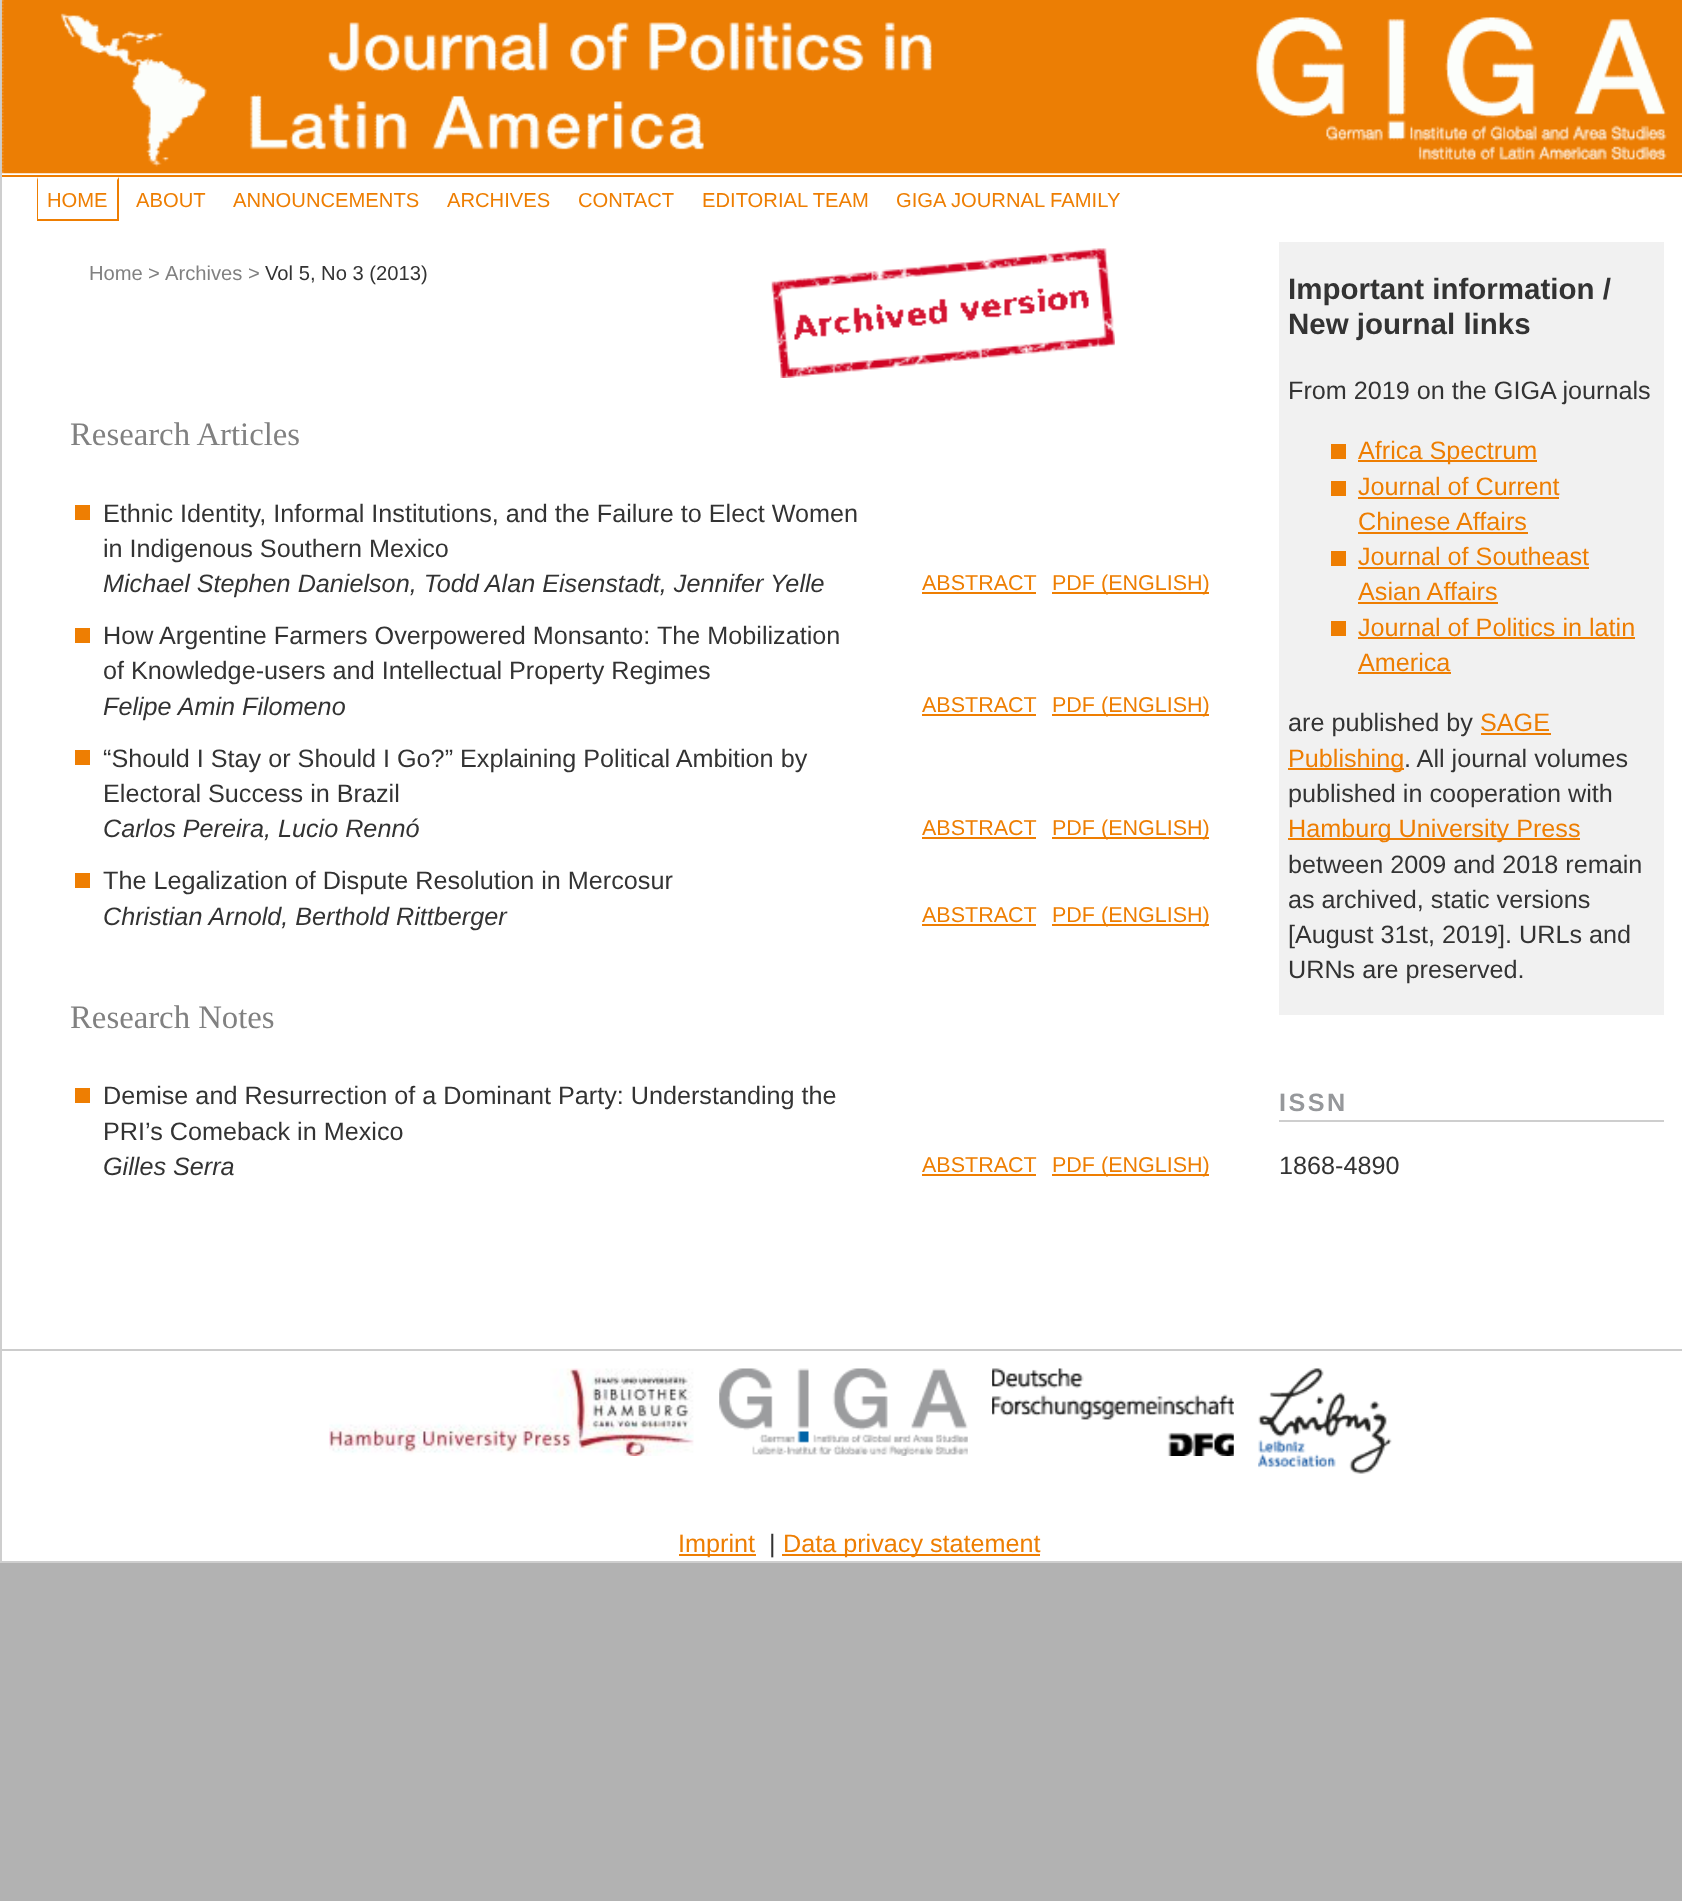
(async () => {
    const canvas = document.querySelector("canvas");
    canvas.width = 1682;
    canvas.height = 1901;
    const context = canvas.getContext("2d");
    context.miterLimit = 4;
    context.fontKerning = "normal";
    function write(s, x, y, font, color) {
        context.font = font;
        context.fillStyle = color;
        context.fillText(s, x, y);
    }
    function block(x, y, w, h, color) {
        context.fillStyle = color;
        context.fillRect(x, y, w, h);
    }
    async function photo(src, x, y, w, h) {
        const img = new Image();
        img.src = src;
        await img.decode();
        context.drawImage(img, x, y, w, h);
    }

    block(0, 0, 1682, 1901, "rgb(178, 178, 178)");
    block(0, 1561, 1682, 2, "rgb(206, 206, 206)");
    block(0, 0, 2, 1563, "rgb(206, 206, 206)");
    block(2, 173, 1680, 1176, "rgb(255, 255, 255)");
    await photo("media/1.png", 1, 0, 1681, 174);
    block(2, 175, 1680, 2, "rgb(238, 126, 2)");
    write("HOME", 47, 207, "20.2px Liberation Sans", "rgb(238, 126, 2)");
    context.beginPath();
    context.moveTo(119, 177);
    context.lineTo(119, 220);
    context.lineTo(117, 219);
    context.lineTo(117, 180);
    context.closePath();
    context.fill();
    block(37, 219, 82, 2, "rgb(238, 126, 2)");
    context.beginPath();
    context.moveTo(37, 220);
    context.lineTo(37, 177);
    context.lineTo(38, 180);
    context.lineTo(38, 219);
    context.closePath();
    context.fill();
    write("ABOUT", 136, 207, "20.2px Liberation Sans", "rgb(238, 126, 2)");
    write("ANNOUNCEMENTS", 233, 207, "20.2px Liberation Sans", "rgb(238, 126, 2)");
    write("ARCHIVES", 447, 207, "20.2px Liberation Sans", "rgb(238, 126, 2)");
    write("CONTACT", 578, 207, "20.2px Liberation Sans", "rgb(238, 126, 2)");
    write("EDITORIAL TEAM", 702, 207, "20.2px Liberation Sans", "rgb(238, 126, 2)");
    write("GIGA JOURNAL FAMILY", 896, 207, "20.2px Liberation Sans", "rgb(238, 126, 2)");
    write("Home", 89, 280, "20.2px Liberation Sans", "rgb(129, 129, 129)");
    write(">", 148, 280, "20.2px Liberation Sans", "rgb(129, 129, 129)");
    write("Archives >", 165, 280, "20.2px Liberation Sans", "rgb(129, 129, 129)");
    write("Vol 5, No 3 (2013)", 265, 280, "20.2px Liberation Sans", "rgb(51, 51, 51)");
    await photo("media/2.png", 771, 248, 344, 130);
    write("Research Articles", 70, 445, "32.75px Liberation Serif", "rgb(129, 129, 129)");
    block(75, 505, 15, 15, "rgb(238, 126, 2)");
    write("Ethnic Identity, Informal Institutions, and the Failure to Elect Women", 103, 522, "25.2px Liberation Sans", "rgb(51, 51, 51)");
    write("in Indigenous Southern Mexico", 103, 557, "25.2px Liberation Sans", "rgb(51, 51, 51)");
    write("Michael Stephen Danielson, Todd Alan Eisenstadt, Jennifer Yelle", 103, 592, "italic 25.2px Liberation Sans", "rgb(51, 51, 51)");
    write("ABSTRACT", 922, 590, "21.5px Liberation Sans", "rgb(238, 126, 2)");
    block(922, 592, 114, 2, "rgb(238, 126, 2)");
    block(1052, 592, 157, 2, "rgb(238, 126, 2)");
    write("PDF (ENGLISH)", 1052, 590, "21.5px Liberation Sans", "rgb(238, 126, 2)");
    block(75, 628, 15, 15, "rgb(238, 126, 2)");
    write("How Argentine Farmers Overpowered Monsanto: The Mobilization", 103, 644, "25.2px Liberation Sans", "rgb(51, 51, 51)");
    write("of Knowledge-users and Intellectual Property Regimes", 103, 679, "25.2px Liberation Sans", "rgb(51, 51, 51)");
    write("Felipe Amin Filomeno", 103, 715, "italic 25.2px Liberation Sans", "rgb(51, 51, 51)");
    write("ABSTRACT", 922, 712, "21.5px Liberation Sans", "rgb(238, 126, 2)");
    block(922, 714, 114, 2, "rgb(238, 126, 2)");
    block(1052, 714, 157, 2, "rgb(238, 126, 2)");
    write("PDF (ENGLISH)", 1052, 712, "21.5px Liberation Sans", "rgb(238, 126, 2)");
    block(75, 750, 15, 15, "rgb(238, 126, 2)");
    write("“Should I Stay or Should I Go?” Explaining Political Ambition by", 103, 767, "25.2px Liberation Sans", "rgb(51, 51, 51)");
    write("Electoral Success in Brazil", 103, 802, "25.2px Liberation Sans", "rgb(51, 51, 51)");
    write("Carlos Pereira, Lucio Rennó", 103, 837, "italic 25.2px Liberation Sans", "rgb(51, 51, 51)");
    write("ABSTRACT", 922, 835, "21.5px Liberation Sans", "rgb(238, 126, 2)");
    block(922, 837, 114, 2, "rgb(238, 126, 2)");
    block(1052, 837, 157, 2, "rgb(238, 126, 2)");
    write("PDF (ENGLISH)", 1052, 835, "21.5px Liberation Sans", "rgb(238, 126, 2)");
    block(75, 873, 15, 15, "rgb(238, 126, 2)");
    write("The Legalization of Dispute Resolution in Mercosur", 103, 889, "25.2px Liberation Sans", "rgb(51, 51, 51)");
    write("Christian Arnold, Berthold Rittberger", 103, 925, "italic 25.2px Liberation Sans", "rgb(51, 51, 51)");
    write("ABSTRACT", 922, 922, "21.5px Liberation Sans", "rgb(238, 126, 2)");
    block(922, 924, 114, 2, "rgb(238, 126, 2)");
    block(1052, 924, 157, 2, "rgb(238, 126, 2)");
    write("PDF (ENGLISH)", 1052, 922, "21.5px Liberation Sans", "rgb(238, 126, 2)");
    write("Research Notes", 70, 1028, "32.75px Liberation Serif", "rgb(129, 129, 129)");
    block(75, 1088, 15, 15, "rgb(238, 126, 2)");
    write("Demise and Resurrection of a Dominant Party: Understanding the", 103, 1104, "25.2px Liberation Sans", "rgb(51, 51, 51)");
    write("PRI’s Comeback in Mexico", 103, 1140, "25.2px Liberation Sans", "rgb(51, 51, 51)");
    write("Gilles Serra", 103, 1175, "italic 25.2px Liberation Sans", "rgb(51, 51, 51)");
    write("ABSTRACT", 922, 1172, "21.5px Liberation Sans", "rgb(238, 126, 2)");
    block(922, 1174, 114, 2, "rgb(238, 126, 2)");
    block(1052, 1174, 157, 2, "rgb(238, 126, 2)");
    write("PDF (ENGLISH)", 1052, 1172, "21.5px Liberation Sans", "rgb(238, 126, 2)");
    block(1279, 242, 385, 773, "rgb(241, 241, 241)");
    write("Important information /", 1288, 299, "bold 29.5px Liberation Sans", "rgb(51, 51, 51)");
    write("New journal links", 1288, 334, "bold 29.5px Liberation Sans", "rgb(51, 51, 51)");
    write("From 2019 on the GIGA journals", 1288, 399, "25.2px Liberation Sans", "rgb(51, 51, 51)");
    block(1331, 444, 15, 15, "rgb(238, 126, 2)");
    block(1358, 460, 179, 2, "rgb(238, 126, 2)");
    write("Africa Spectrum", 1358, 459, "25.2px Liberation Sans", "rgb(238, 126, 2)");
    block(1331, 481, 15, 15, "rgb(238, 126, 2)");
    write("Journal of Current", 1358, 495, "25.2px Liberation Sans", "rgb(238, 126, 2)");
    block(1358, 497, 201, 2, "rgb(238, 126, 2)");
    write("Chinese Affairs", 1358, 530, "25.2px Liberation Sans", "rgb(238, 126, 2)");
    block(1358, 532, 170, 2, "rgb(238, 126, 2)");
    block(1331, 551, 15, 15, "rgb(238, 126, 2)");
    write("Journal of Southeast", 1358, 565, "25.2px Liberation Sans", "rgb(238, 126, 2)");
    block(1358, 567, 231, 2, "rgb(238, 126, 2)");
    write("Asian Affairs", 1358, 600, "25.2px Liberation Sans", "rgb(238, 126, 2)");
    block(1358, 602, 140, 2, "rgb(238, 126, 2)");
    block(1331, 621, 15, 15, "rgb(238, 126, 2)");
    write("Journal of Politics in latin", 1358, 636, "25.2px Liberation Sans", "rgb(238, 126, 2)");
    block(1358, 637, 277, 2, "rgb(238, 126, 2)");
    write("America", 1358, 671, "25.2px Liberation Sans", "rgb(238, 126, 2)");
    block(1358, 672, 93, 2, "rgb(238, 126, 2)");
    write("are published by", 1288, 731, "25.2px Liberation Sans", "rgb(51, 51, 51)");
    write("SAGE", 1480, 731, "25.2px Liberation Sans", "rgb(238, 126, 2)");
    block(1481, 733, 70, 2, "rgb(238, 126, 2)");
    block(1288, 768, 116, 2, "rgb(238, 126, 2)");
    write("Publishing", 1288, 767, "25.2px Liberation Sans", "rgb(238, 126, 2)");
    write(". All journal volumes", 1404, 767, "25.2px Liberation Sans", "rgb(51, 51, 51)");
    write("published in cooperation with", 1288, 802, "25.2px Liberation Sans", "rgb(51, 51, 51)");
    block(1288, 838, 292, 2, "rgb(238, 126, 2)");
    write("Hamburg University Press", 1288, 837, "25.2px Liberation Sans", "rgb(238, 126, 2)");
    write("between 2009 and 2018 remain", 1288, 873, "25.2px Liberation Sans", "rgb(51, 51, 51)");
    write("as archived, static versions", 1288, 908, "25.2px Liberation Sans", "rgb(51, 51, 51)");
    write("[August 31st, 2019]. URLs and", 1288, 943, "25.2px Liberation Sans", "rgb(51, 51, 51)");
    write("URNs are preserved.", 1288, 978, "25.2px Liberation Sans", "rgb(51, 51, 51)");
    block(1279, 1120, 385, 2, "rgb(206, 206, 206)");
    context.letterSpacing = "2.5px";
    write("ISSN", 1279, 1111, "bold 25.2px Liberation Sans", "rgb(150, 152, 155)");
    context.letterSpacing = "0px";
    write("1868-4890", 1279, 1174, "25.2px Liberation Sans", "rgb(51, 51, 51)");
    block(2, 1351, 1680, 210, "rgb(255, 255, 255)");
    block(2, 1349, 1680, 2, "rgb(204, 204, 204)");
    await photo("media/3.png", 329, 1368, 365, 88);
    await photo("media/4.png", 719, 1368, 249, 88);
    await photo("media/5.png", 992, 1368, 242, 88);
    await photo("media/6.png", 1258, 1368, 134, 106);
    block(679, 1554, 77, 2, "rgb(238, 126, 2)");
    write("Imprint", 678, 1552, "25.2px Liberation Sans", "rgb(238, 126, 2)");
    write("|", 769, 1552, "25.2px Liberation Sans", "rgb(51, 51, 51)");
    block(782, 1554, 258, 2, "rgb(238, 126, 2)");
    write("Data privacy statement", 783, 1552, "25.2px Liberation Sans", "rgb(238, 126, 2)");
})();
